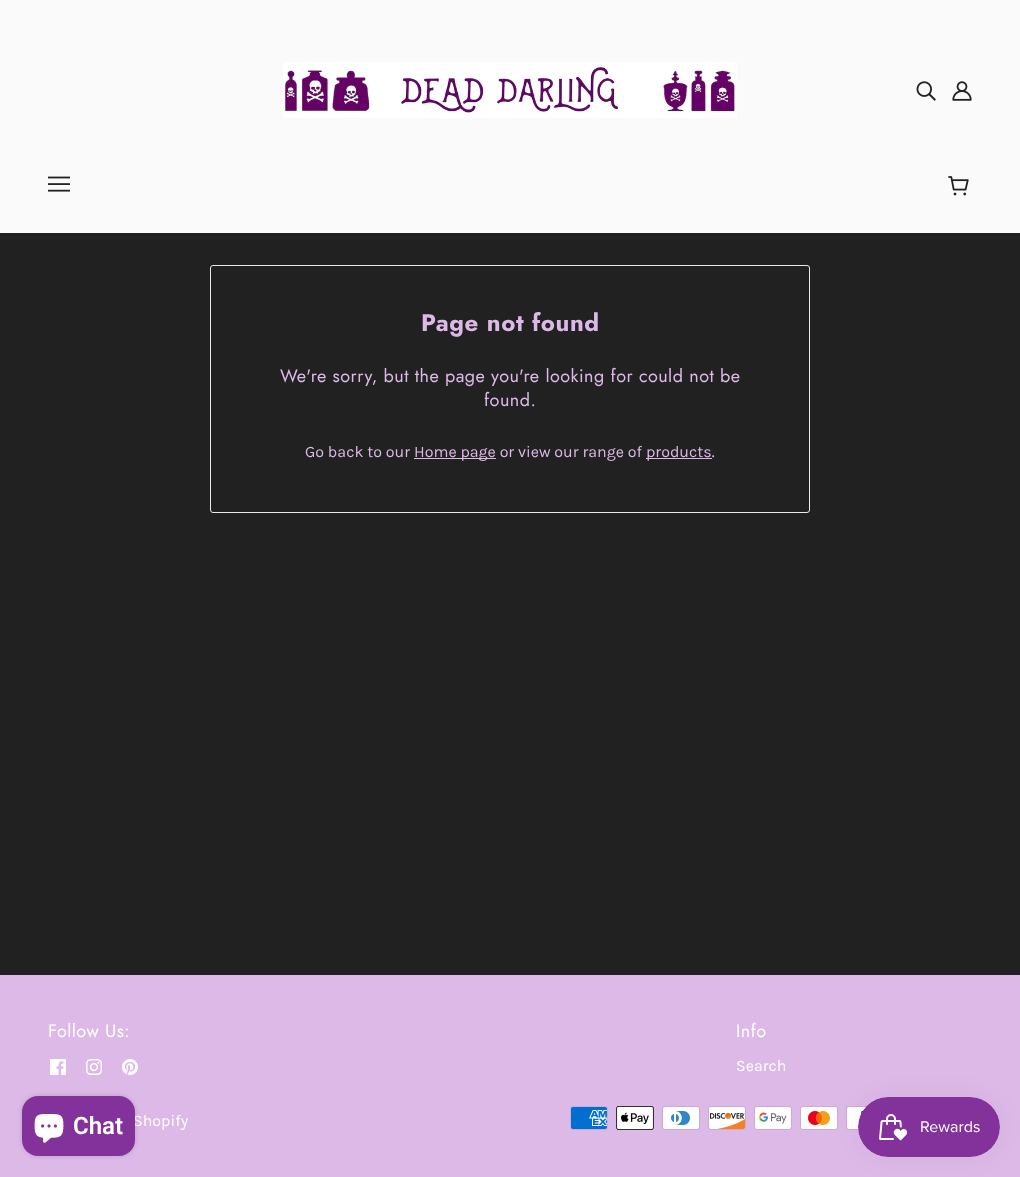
(async () => {
    const canvas = document.querySelector("canvas");
    canvas.width = 1020;
    canvas.height = 1177;
    const context = canvas.getContext("2d");
    context.miterLimit = 4;
    context.fontKerning = "normal";
    function write(s, x, y, font, color) {
        context.font = font;
        context.fillStyle = color;
        context.fillText(s, x, y);
    }
    function block(x, y, w, h, color) {
        context.fillStyle = color;
        context.fillRect(x, y, w, h);
    }
    function card(x, y, w, h, r, color) {
        context.fillStyle = color;
        context.beginPath();
        context.roundRect(x, y, w, h, r);
        context.fill();
    }
    async function photo(src, x, y, w, h) {
        const img = new Image();
        img.src = src;
        await img.decode();
        context.drawImage(img, x, y, w, h);
    }

    block(0, 0, 1020, 1177, "rgb(33, 33, 33)");
    block(0, 0, 1020, 233, "rgb(250, 250, 250)");
    await photo("media/1.png", 283, 62, 454, 56);
    await photo("media/2.png", 916, 81, 20, 20);
    await photo("media/3.png", 952, 81, 20, 20);
    await photo("media/4.png", 48, 176, 22, 16);
    await photo("media/5.png", 948, 176, 21, 20);
    context.beginPath();
    context.roundRect(210.5, 265.5, 599, 247, 2.5);
    context.strokeStyle = "rgb(234, 234, 234)";
    context.stroke();
    context.letterSpacing = "0.6px";
    write("Page not found", 421, 331, "bold 24px Jost", "rgb(221, 185, 231)");
    context.letterSpacing = "0.45px";
    write("We're sorry, but the page you're looking for could not be", 280, 382, "18px Jost", "rgb(221, 185, 231)");
    write("found.", 484, 406, "18px Jost", "rgb(221, 185, 231)");
    context.letterSpacing = "0px";
    write("Go back to our", 305, 457, "16px Karla", "rgb(221, 185, 231)");
    block(414, 458, 82, 1, "rgb(221, 185, 231)");
    write("Home page or view our range of", 414, 457, "16px Karla", "rgb(221, 185, 231)");
    block(646, 458, 66, 1, "rgb(221, 185, 231)");
    write("products.", 646, 457, "16px Karla", "rgb(221, 185, 231)");
    block(0, 975, 1020, 202, "rgb(221, 185, 231)");
    context.letterSpacing = "0.45px";
    write("Follow Us:", 48, 1037, "18px Jost", "rgb(255, 255, 255)");
    await photo("media/6.png", 50, 1059, 16, 16);
    await photo("media/7.png", 86, 1059, 16, 16);
    await photo("media/8.png", 122, 1059, 16, 16);
    write("Info", 736, 1037, "18px Jost", "rgb(255, 255, 255)");
    context.letterSpacing = "0px";
    write("Search", 736, 1071, "16px Karla", "rgb(255, 255, 255)");
    write("Shopify", 133, 1126, "16px Karla", "rgb(255, 255, 255)");
    await photo("media/9.png", 570, 1106, 38, 24);
    await photo("media/10.png", 616, 1106, 38, 24);
    await photo("media/11.png", 662, 1106, 38, 24);
    await photo("media/12.png", 708, 1106, 38, 24);
    await photo("media/13.png", 754, 1106, 38, 24);
    await photo("media/14.png", 800, 1106, 38, 24);
    await photo("media/15.png", 846, 1106, 21, 24);
    context.fillStyle = "rgba(0, 0, 0, 0.05)";
    context.filter = "blur(12.5px)";
    context.beginPath();
    context.roundRect(858, 1097, 142, 60, 30);
    context.fill();
    context.filter = "none";
    await photo("media/16.png", 858, 1097, 142, 60);
    context.fillStyle = "rgba(0, 0, 0, 0.15)";
    context.filter = "blur(2.5px)";
    context.beginPath();
    context.roundRect(22, 1096, 113, 60, 16);
    context.fill();
    context.filter = "none";
    card(22, 1096, 113, 60, 16, "rgb(132, 50, 155)");
    await photo("media/17.png", 34, 1114, 30, 29);
    write("Chat", 73, 1134, "600 24px Roboto", "rgb(255, 255, 255)");
})();
